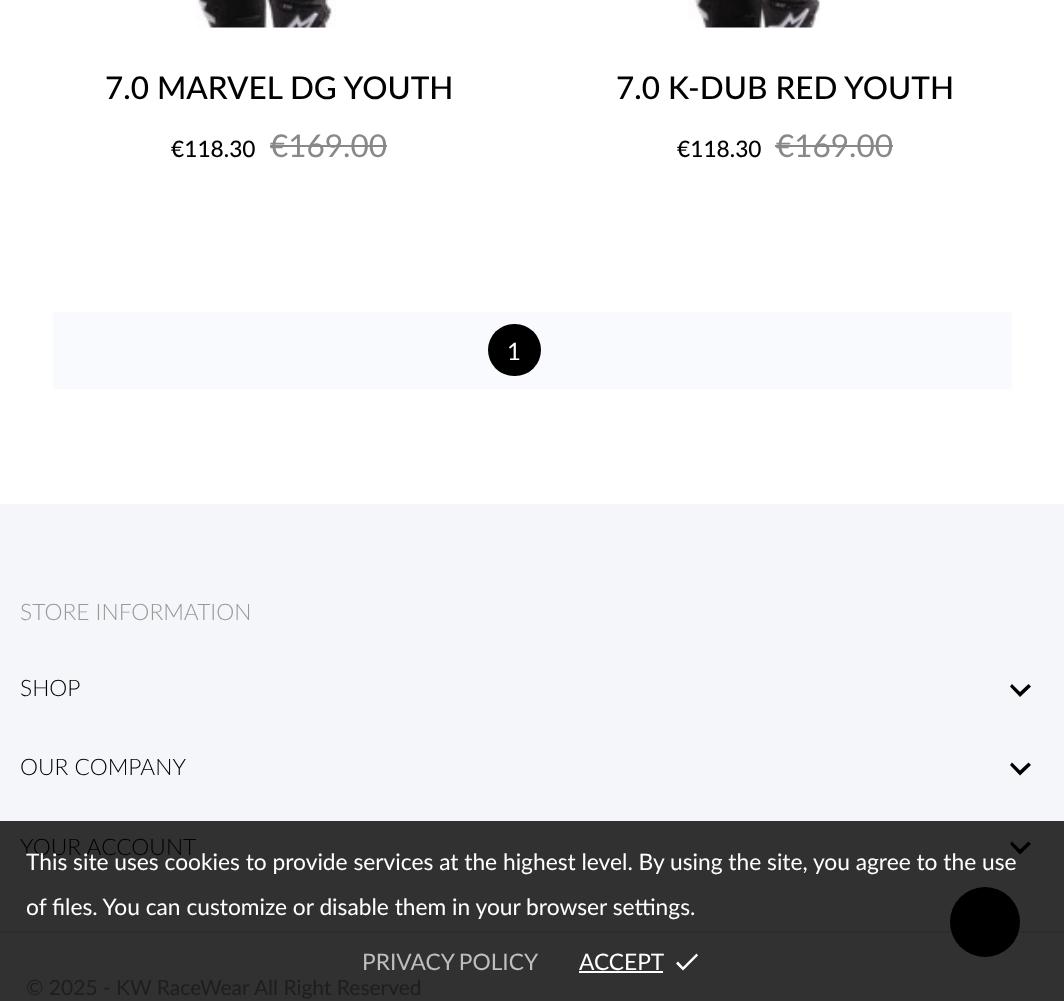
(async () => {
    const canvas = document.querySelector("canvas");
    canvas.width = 1064;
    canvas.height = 1001;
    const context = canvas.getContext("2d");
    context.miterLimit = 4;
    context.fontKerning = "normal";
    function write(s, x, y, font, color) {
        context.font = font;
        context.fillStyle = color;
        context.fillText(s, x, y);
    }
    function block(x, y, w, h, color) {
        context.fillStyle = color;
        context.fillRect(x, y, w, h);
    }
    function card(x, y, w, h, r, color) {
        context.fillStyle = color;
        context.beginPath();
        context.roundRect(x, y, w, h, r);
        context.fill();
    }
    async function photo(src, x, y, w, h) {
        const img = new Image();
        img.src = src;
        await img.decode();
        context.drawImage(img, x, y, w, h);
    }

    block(0, 0, 1064, 1001, "rgb(255, 255, 255)");
    await photo("media/1.png", 196, 0, 140, 28);
    write("7.0 MARVEL DG YOUTH", 105, 99, "500 31.5px Lato", "rgb(0, 0, 0)");
    write("€118.30", 171, 157, "500 22.75px Lato", "rgb(0, 0, 0)");
    write("€169.00", 270, 157, "31.5px Lato", "rgb(136, 136, 136)");
    block(270, 145, 117, 2, "rgb(136, 136, 136)");
    await photo("media/2.png", 688, 0, 133, 28);
    write("7.0 K-DUB RED YOUTH", 616, 99, "500 31.5px Lato", "rgb(0, 0, 0)");
    write("€118.30", 677, 157, "500 22.75px Lato", "rgb(0, 0, 0)");
    write("€169.00", 776, 157, "31.5px Lato", "rgb(136, 136, 136)");
    block(775, 145, 118, 2, "rgb(136, 136, 136)");
    block(53, 312, 959, 77, "rgb(249, 250, 254)");
    card(488, 324, 53, 52, 26, "rgb(0, 0, 0)");
    write("1", 507, 360, "24px Lato", "rgb(255, 255, 255)");
    block(0, 504, 1064, 317, "rgb(245, 246, 250)");
    block(0, 821, 1064, 110, "rgb(49, 49, 50)");
    block(0, 649, 1064, 2, "rgb(246, 246, 246)");
    write("STORE INFORMATION", 20, 620, "300 22.75px Lato", "rgb(152, 152, 152)");
    block(0, 728, 1064, 2, "rgb(246, 246, 246)");
    write("SHOP", 20, 696, "300 22.75px Lato", "rgb(0, 0, 0)");
    context.beginPath();
    context.moveTo(1012, 684);
    context.lineTo(1020, 692);
    context.lineTo(1028.5, 684);
    context.lineTo(1031, 686.5);
    context.lineTo(1020, 697);
    context.lineTo(1010, 686.5);
    context.closePath();
    context.fill();
    block(0, 807, 1064, 2, "rgb(246, 246, 246)");
    write("OUR COMPANY", 20, 775, "300 22.75px Lato", "rgb(0, 0, 0)");
    context.beginPath();
    context.moveTo(1012, 762.5);
    context.lineTo(1020, 770.5);
    context.lineTo(1028.5, 762.5);
    context.lineTo(1031, 765);
    context.lineTo(1020, 775.5);
    context.lineTo(1010, 765);
    context.closePath();
    context.fill();
    write("YOUR ACCOUNT", 20, 855, "300 22.75px Lato", "rgb(0, 0, 0)");
    context.beginPath();
    context.moveTo(1012, 841.5);
    context.lineTo(1020, 849.5);
    context.lineTo(1028.5, 841.5);
    context.lineTo(1031, 844);
    context.lineTo(1020, 854.5);
    context.lineTo(1010, 844);
    context.closePath();
    context.fill();
    write("This site uses cookies to provide services at the highest level. By using the site, you agree to the use", 26, 870, "22.75px Lato", "rgb(255, 255, 255)");
    write("of files. You can customize or disable them in your browser settings.", 26, 915, "22.75px Lato", "rgb(255, 255, 255)");
    block(0, 933, 1064, 68, "rgb(49, 49, 50)");
    context.wordSpacing = "-1px";
    write("PRIVACY POLICY", 362, 970, "22.75px Lato", "rgb(190, 190, 190)");
    context.wordSpacing = "0px";
    write("ACCEPT", 579, 970, "22.75px Lato", "rgb(255, 255, 255)");
    block(579, 971, 84, 2, "rgb(255, 255, 255)");
    context.beginPath();
    context.moveTo(683, 967);
    context.lineTo(696.5, 953.5);
    context.lineTo(698, 955.5);
    context.lineTo(683, 970.5);
    context.lineTo(676, 963.5);
    context.lineTo(678, 961.5);
    context.closePath();
    context.fill();
    block(0, 931, 1064, 2, "rgb(44, 44, 46)");
    context.fillStyle = "rgb(0, 0, 0)";
    context.beginPath();
    context.arc(985, 922, 35, 0, Math.PI * 2);
    context.fill();
    write("© 2025 - KW RaceWear All Right Reserved", 26, 995, "21px Lato", "rgb(30, 30, 30)");
})();
